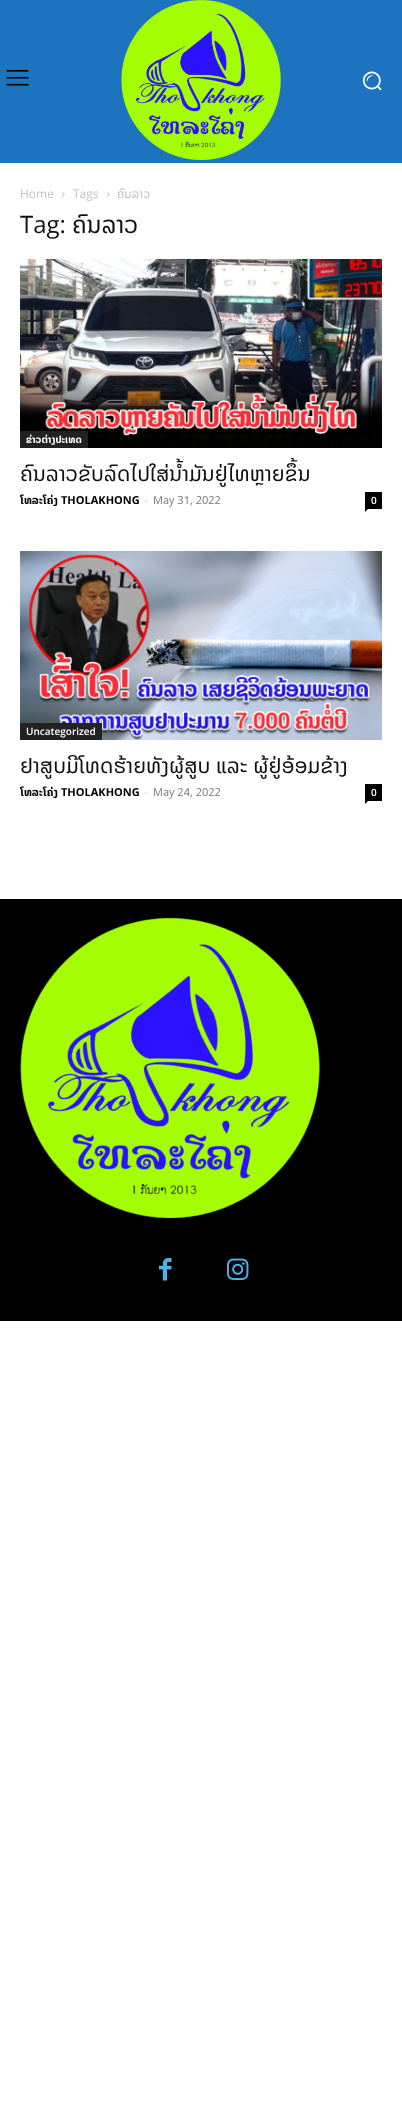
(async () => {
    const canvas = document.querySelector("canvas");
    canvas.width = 402;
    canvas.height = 2127;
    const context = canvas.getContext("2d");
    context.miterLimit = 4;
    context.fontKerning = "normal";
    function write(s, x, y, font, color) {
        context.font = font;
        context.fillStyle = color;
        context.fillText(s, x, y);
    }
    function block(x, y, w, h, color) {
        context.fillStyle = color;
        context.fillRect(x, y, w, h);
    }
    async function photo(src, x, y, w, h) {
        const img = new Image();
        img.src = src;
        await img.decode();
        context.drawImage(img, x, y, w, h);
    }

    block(0, 0, 402, 2127, "rgb(255, 255, 255)");
    block(0, 0, 402, 163, "rgb(30, 115, 190)");
    await photo("media/1.png", 6, 70, 23, 16);
    await photo("media/2.png", 121, 0, 160, 160);
    await photo("media/3.png", 362, 71, 20, 20);
    write("Home", 20, 198, "12px Open Sans", "rgb(195, 195, 195)");
    await photo("media/4.png", 62, 192, 3, 5);
    write("Tags", 73, 198, "12px Open Sans", "rgb(195, 195, 195)");
    await photo("media/4.png", 107, 192, 3, 5);
    write("ຄົນລາວ", 117, 198, "12px Noto Sans Lao", "rgb(195, 195, 195)");
    write("Tag:", 20, 233, "24px Open Sans", "rgb(17, 17, 17)");
    write("ຄົນລາວ", 72, 233, "24px Noto Sans Lao", "rgb(17, 17, 17)");
    await photo("media/5.png", 20, 259, 362, 189);
    block(20, 431, 68, 17, "rgb(34, 34, 34)");
    write("ຂ່າວຕ່າງປະເທດ", 26, 443, "bold 10px Noto Sans Lao", "rgb(255, 255, 255)");
    write("ຄົນລາວຂັບລົດໄປໃສ່ນໍ້າມັນຢູ່ໄທຫຼາຍຂຶ້ນ", 20, 481, "21px Noto Sans Lao", "rgb(17, 17, 17)");
    write("ໂທລະໂຄ່ງ", 20, 504, "bold 11px Noto Sans Lao", "rgb(0, 0, 0)");
    write("THOLAKHONG", 61, 504, "bold 11px Open Sans", "rgb(0, 0, 0)");
    write("-", 144, 504, "11px Open Sans", "rgb(204, 204, 204)");
    write("May 31, 2022", 153, 504, "11px Open Sans", "rgb(118, 118, 118)");
    block(365, 492, 17, 17, "rgb(0, 0, 0)");
    write("0", 371, 504, "600 10px Open Sans", "rgb(255, 255, 255)");
    context.fillStyle = "rgb(0, 0, 0)";
    context.beginPath();
    context.moveTo(365, 509);
    context.lineTo(368, 509);
    context.lineTo(365, 512);
    context.closePath();
    context.fill();
    await photo("media/6.png", 20, 551, 362, 189);
    block(20, 723, 82, 17, "rgb(34, 34, 34)");
    write("Uncategorized", 26, 735, "600 10px Open Sans", "rgb(255, 255, 255)");
    write("ຢາສູບມີໂທດຮ້າຍທັງຜູ້ສູບ ແລະ ຜູ້ຢູ່ອ້ອມຂ້າງ", 20, 773, "21px Noto Sans Lao", "rgb(17, 17, 17)");
    write("ໂທລະໂຄ່ງ", 20, 796, "bold 11px Noto Sans Lao", "rgb(0, 0, 0)");
    write("THOLAKHONG", 61, 796, "bold 11px Open Sans", "rgb(0, 0, 0)");
    write("-", 144, 796, "11px Open Sans", "rgb(204, 204, 204)");
    write("May 24, 2022", 153, 796, "11px Open Sans", "rgb(118, 118, 118)");
    block(365, 784, 17, 17, "rgb(0, 0, 0)");
    write("0", 371, 796, "600 10px Open Sans", "rgb(255, 255, 255)");
    context.fillStyle = "rgb(0, 0, 0)";
    context.beginPath();
    context.moveTo(365, 801);
    context.lineTo(368, 801);
    context.lineTo(365, 804);
    context.closePath();
    context.fill();
    block(0, 899, 402, 422, "rgb(0, 0, 0)");
    await photo("media/7.png", 20, 918, 300, 300);
    await photo("media/8.png", 159, 1258, 13, 23);
    await photo("media/9.png", 227, 1258, 22, 22);
})();
